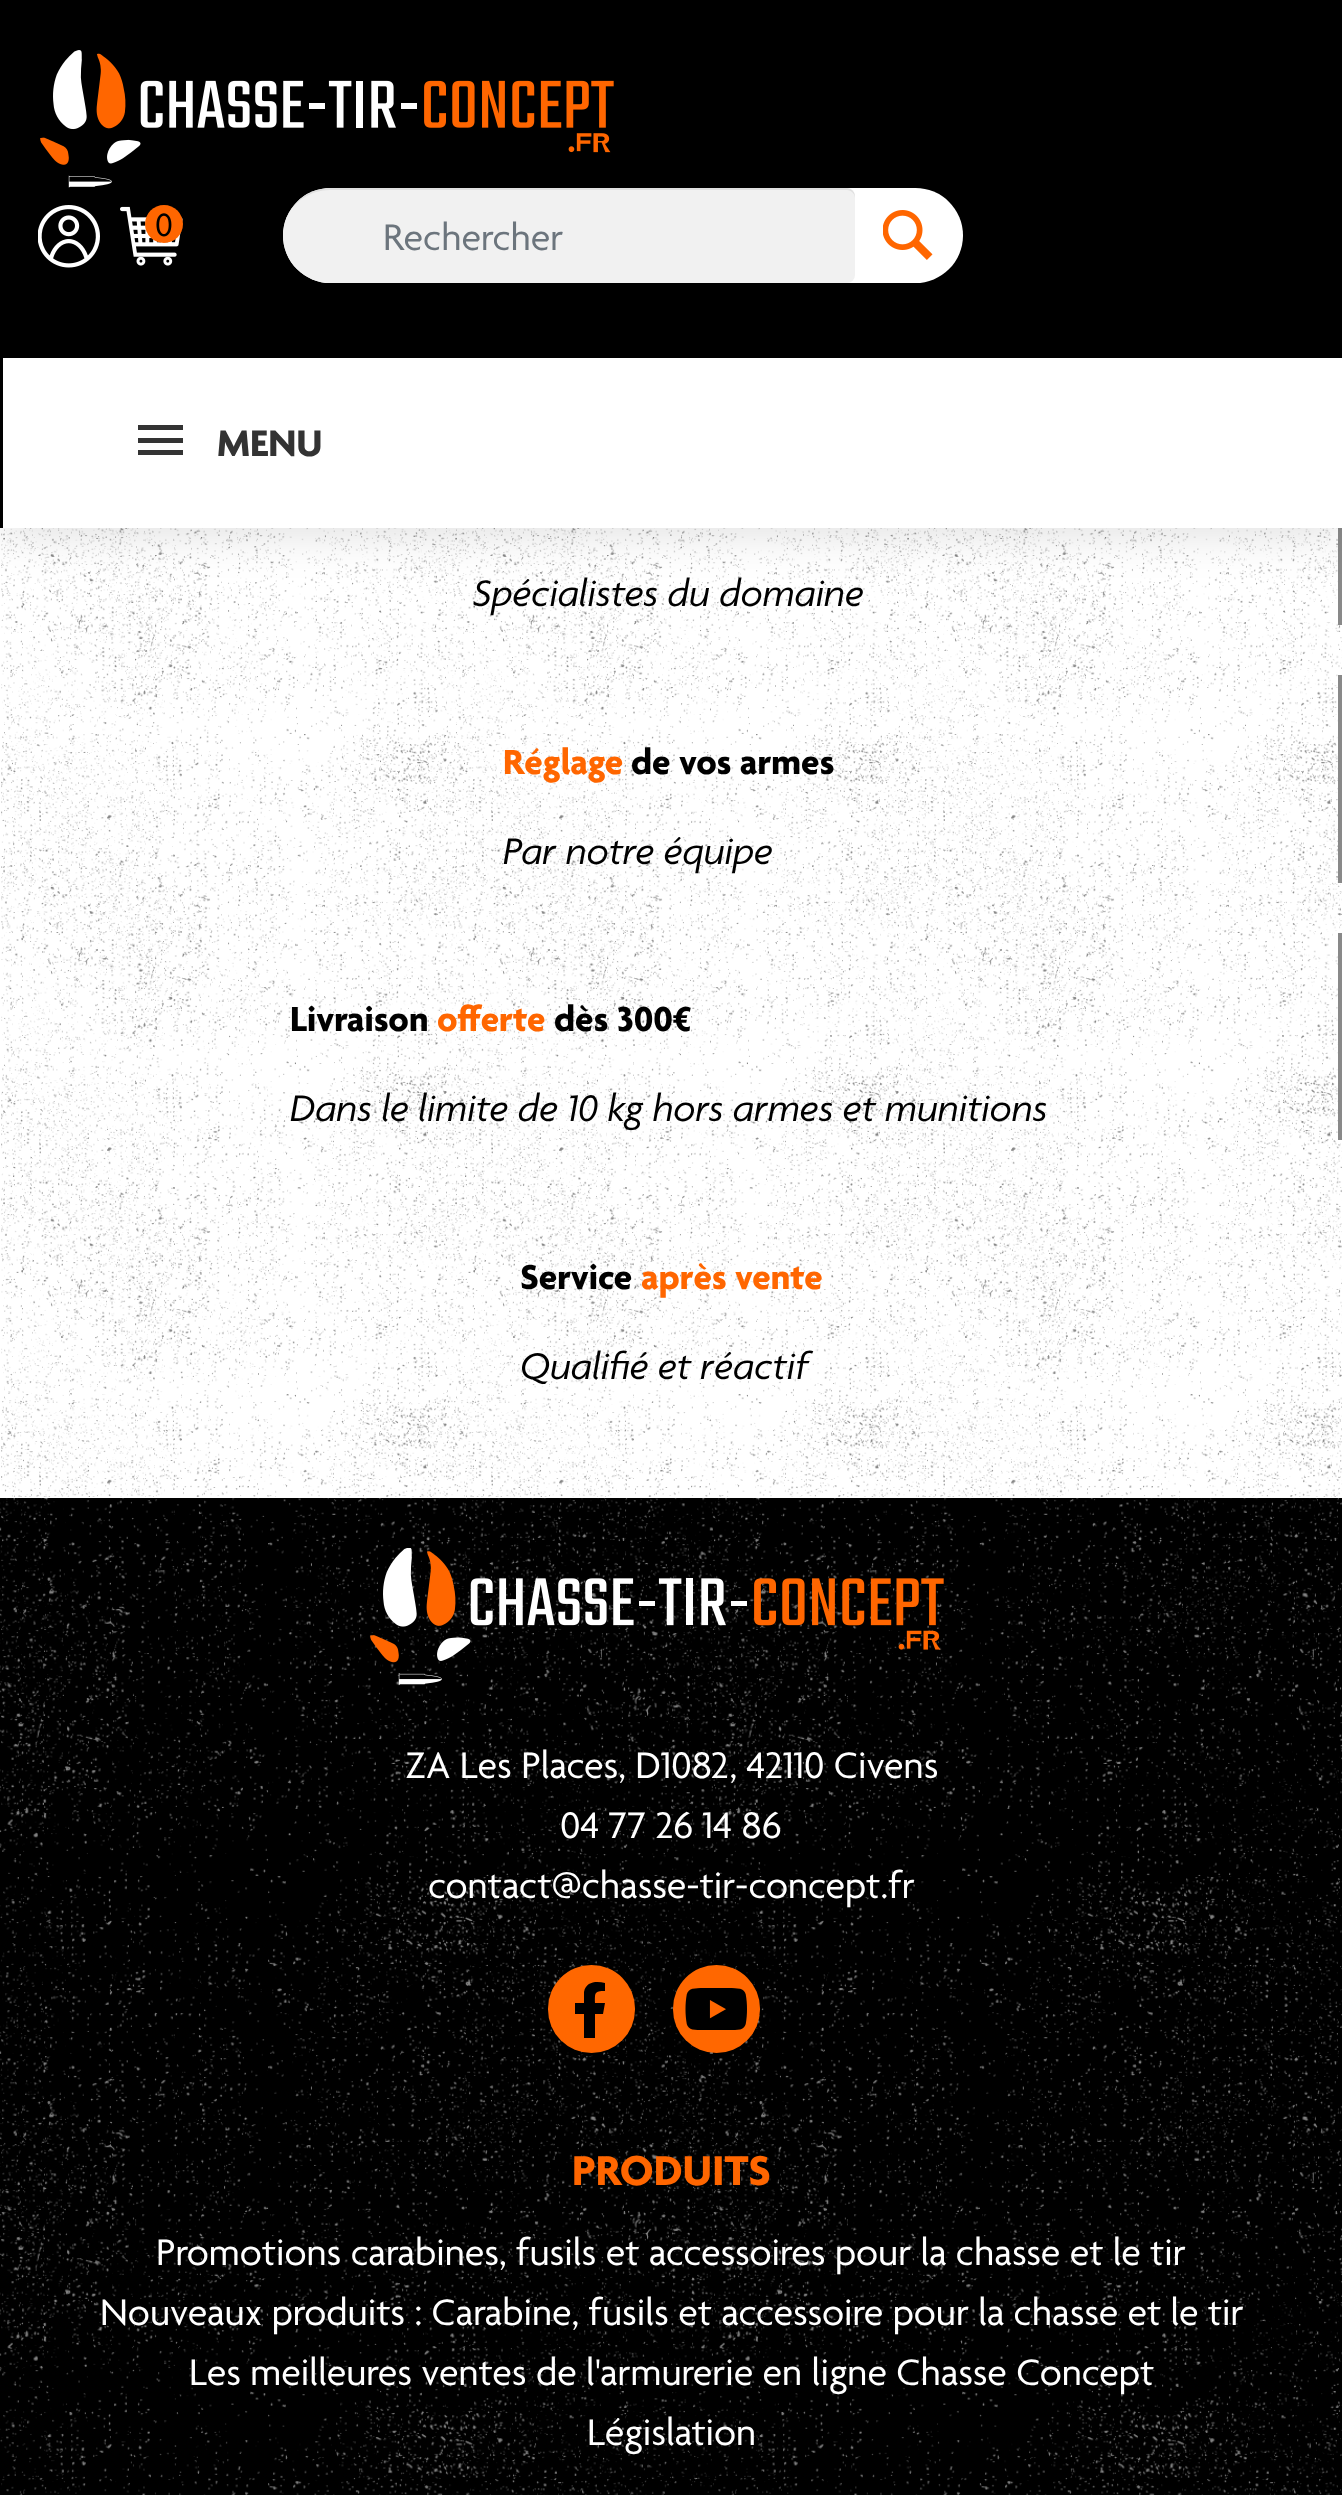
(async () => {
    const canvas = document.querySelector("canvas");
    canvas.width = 1342;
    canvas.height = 2495;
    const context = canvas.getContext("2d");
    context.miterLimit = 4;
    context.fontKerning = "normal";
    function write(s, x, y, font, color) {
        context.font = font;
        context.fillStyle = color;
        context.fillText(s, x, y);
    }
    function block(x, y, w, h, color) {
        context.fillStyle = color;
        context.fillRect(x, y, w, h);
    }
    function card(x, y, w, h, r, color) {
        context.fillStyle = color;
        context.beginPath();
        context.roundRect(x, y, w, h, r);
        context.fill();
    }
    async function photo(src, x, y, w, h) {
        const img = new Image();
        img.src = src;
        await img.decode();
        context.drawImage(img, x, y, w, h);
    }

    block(0, 0, 1342, 2495, "rgb(255, 255, 255)");
    await photo("media/5.png", 1, 528, 1341, 969);
    block(1338, 528, 4, 97, "rgb(137, 137, 137)");
    context.fillStyle = "rgba(0, 0, 0, 0.15)";
    context.filter = "blur(25px)";
    context.beginPath();
    context.rect(0, 0, 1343, 528);
    context.fill();
    context.filter = "none";
    block(0, 0, 1342, 528, "rgb(0, 0, 0)");
    await photo("media/1.png", 40, 50, 574, 138);
    await photo("media/2.png", 38, 205, 62, 63);
    await photo("media/3.png", 120, 206, 63, 60);
    context.fillStyle = "rgb(255, 102, 0)";
    context.beginPath();
    context.arc(164, 224, 19, 0, Math.PI * 2);
    context.fill();
    write("0", 155, 236, "35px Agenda", "rgb(0, 0, 0)");
    card(283, 188, 680, 95, 47.5, "rgb(255, 255, 255)");
    context.fillStyle = "rgb(241, 241, 241)";
    context.beginPath();
    context.roundRect(283, 188, 572, 95, [47.5, 8, 8, 47.5]);
    context.fill();
    context.fillStyle = "rgba(0, 0, 0, 0.07)";
    context.beginPath();
    context.moveTo(330, 190);
    context.lineTo(847, 190);
    context.bezierCurveTo(851, 190, 855, 194, 855, 198);
    context.lineTo(855, 196);
    context.bezierCurveTo(855, 192, 851, 188, 847, 188);
    context.lineTo(330, 188);
    context.bezierCurveTo(310, 188, 293, 200, 286, 218);
    context.bezierCurveTo(294, 201, 311, 190, 330, 190);
    context.closePath();
    context.fill();
    write("Rechercher", 383, 250, "40px Agenda", "rgb(108, 117, 125)");
    await photo("media/4.png", 883, 210, 50, 50);
    block(3, 358, 1339, 170, "rgb(255, 255, 255)");
    block(138, 425, 45, 5, "rgb(51, 51, 51)");
    block(138, 438, 45, 5, "rgb(51, 51, 51)");
    block(138, 450, 45, 5, "rgb(51, 51, 51)");
    write("MENU", 217, 456, "bold 40px Agenda", "rgb(51, 51, 51)");
    write("Spécialistes du domaine", 473, 606, "italic 40px Agenda", "rgb(0, 0, 0)");
    block(1338, 675, 4, 208, "rgb(137, 137, 137)");
    write("Réglage", 503, 774, "bold 37.5px Agenda", "rgb(255, 102, 0)");
    write("de vos armes", 631, 774, "bold 37.5px Agenda", "rgb(0, 0, 0)");
    write("Par notre équipe", 503, 864, "italic 40px Agenda", "rgb(0, 0, 0)");
    block(1338, 933, 4, 207, "rgb(137, 137, 137)");
    write("Livraison", 290, 1031, "bold 37.5px Agenda", "rgb(0, 0, 0)");
    write("offerte", 437, 1031, "bold 37.5px Agenda", "rgb(255, 102, 0)");
    write("dès 300€", 554, 1031, "bold 37.5px Agenda", "rgb(0, 0, 0)");
    write("Dans le limite de 10 kg hors armes et munitions", 290, 1121, "italic 40px Agenda", "rgb(0, 0, 0)");
    write("Service", 520, 1289, "bold 37.5px Agenda", "rgb(0, 0, 0)");
    write("après vente", 641, 1289, "bold 37.5px Agenda", "rgb(255, 102, 0)");
    write("Qualifié et réactif", 520, 1379, "italic 40px Agenda", "rgb(0, 0, 0)");
    block(0, 1498, 1342, 997, "rgb(0, 0, 0)");
    await photo("media/6.png", 0, 1498, 1342, 997);
    await photo("media/7.png", 370, 1548, 574, 137);
    write("ZA Les Places, D1082, 42110 Civens", 405, 1778, "40px Agenda", "rgb(255, 255, 255)");
    write("04 77 26 14 86", 560, 1838, "40px Agenda", "rgb(255, 255, 255)");
    write("contact@chasse-tir-concept.fr", 428, 1898, "40px Agenda", "rgb(255, 255, 255)");
    card(548, 1965, 87, 88, 43.5, "rgb(255, 103, 0)");
    context.fillStyle = "rgb(0, 0, 0)";
    context.beginPath();
    context.moveTo(603, 2014);
    context.lineTo(605, 2003);
    context.lineTo(595, 2003);
    context.bezierCurveTo(595, 1993, 594, 1991, 605, 1991);
    context.lineTo(605, 1983);
    context.bezierCurveTo(597, 1981, 586, 1981, 584, 1992);
    context.lineTo(584, 2003);
    context.lineTo(575, 2003);
    context.lineTo(575, 2014);
    context.lineTo(584, 2014);
    context.lineTo(584, 2038);
    context.lineTo(595, 2038);
    context.lineTo(595, 2014);
    context.closePath();
    context.fill();
    card(673, 1965, 87, 88, 43.5, "rgb(255, 103, 0)");
    await photo("media/8.png", 685, 1988, 62, 42);
    write("PRODUITS", 572, 2185, "bold 45px Agenda", "rgb(255, 102, 0)");
    write("Promotions carabines, fusils et accessoires pour la chasse et le tir", 156, 2265, "40px Agenda", "rgb(255, 255, 255)");
    write("Nouveaux produits : Carabine, fusils et accessoire pour la chasse et le tir", 100, 2325, "40px Agenda", "rgb(255, 255, 255)");
    write("Les meilleures ventes de l'armurerie en ligne Chasse Concept", 189, 2385, "40px Agenda", "rgb(255, 255, 255)");
    write("Législation", 587, 2445, "40px Agenda", "rgb(255, 255, 255)");
})();
